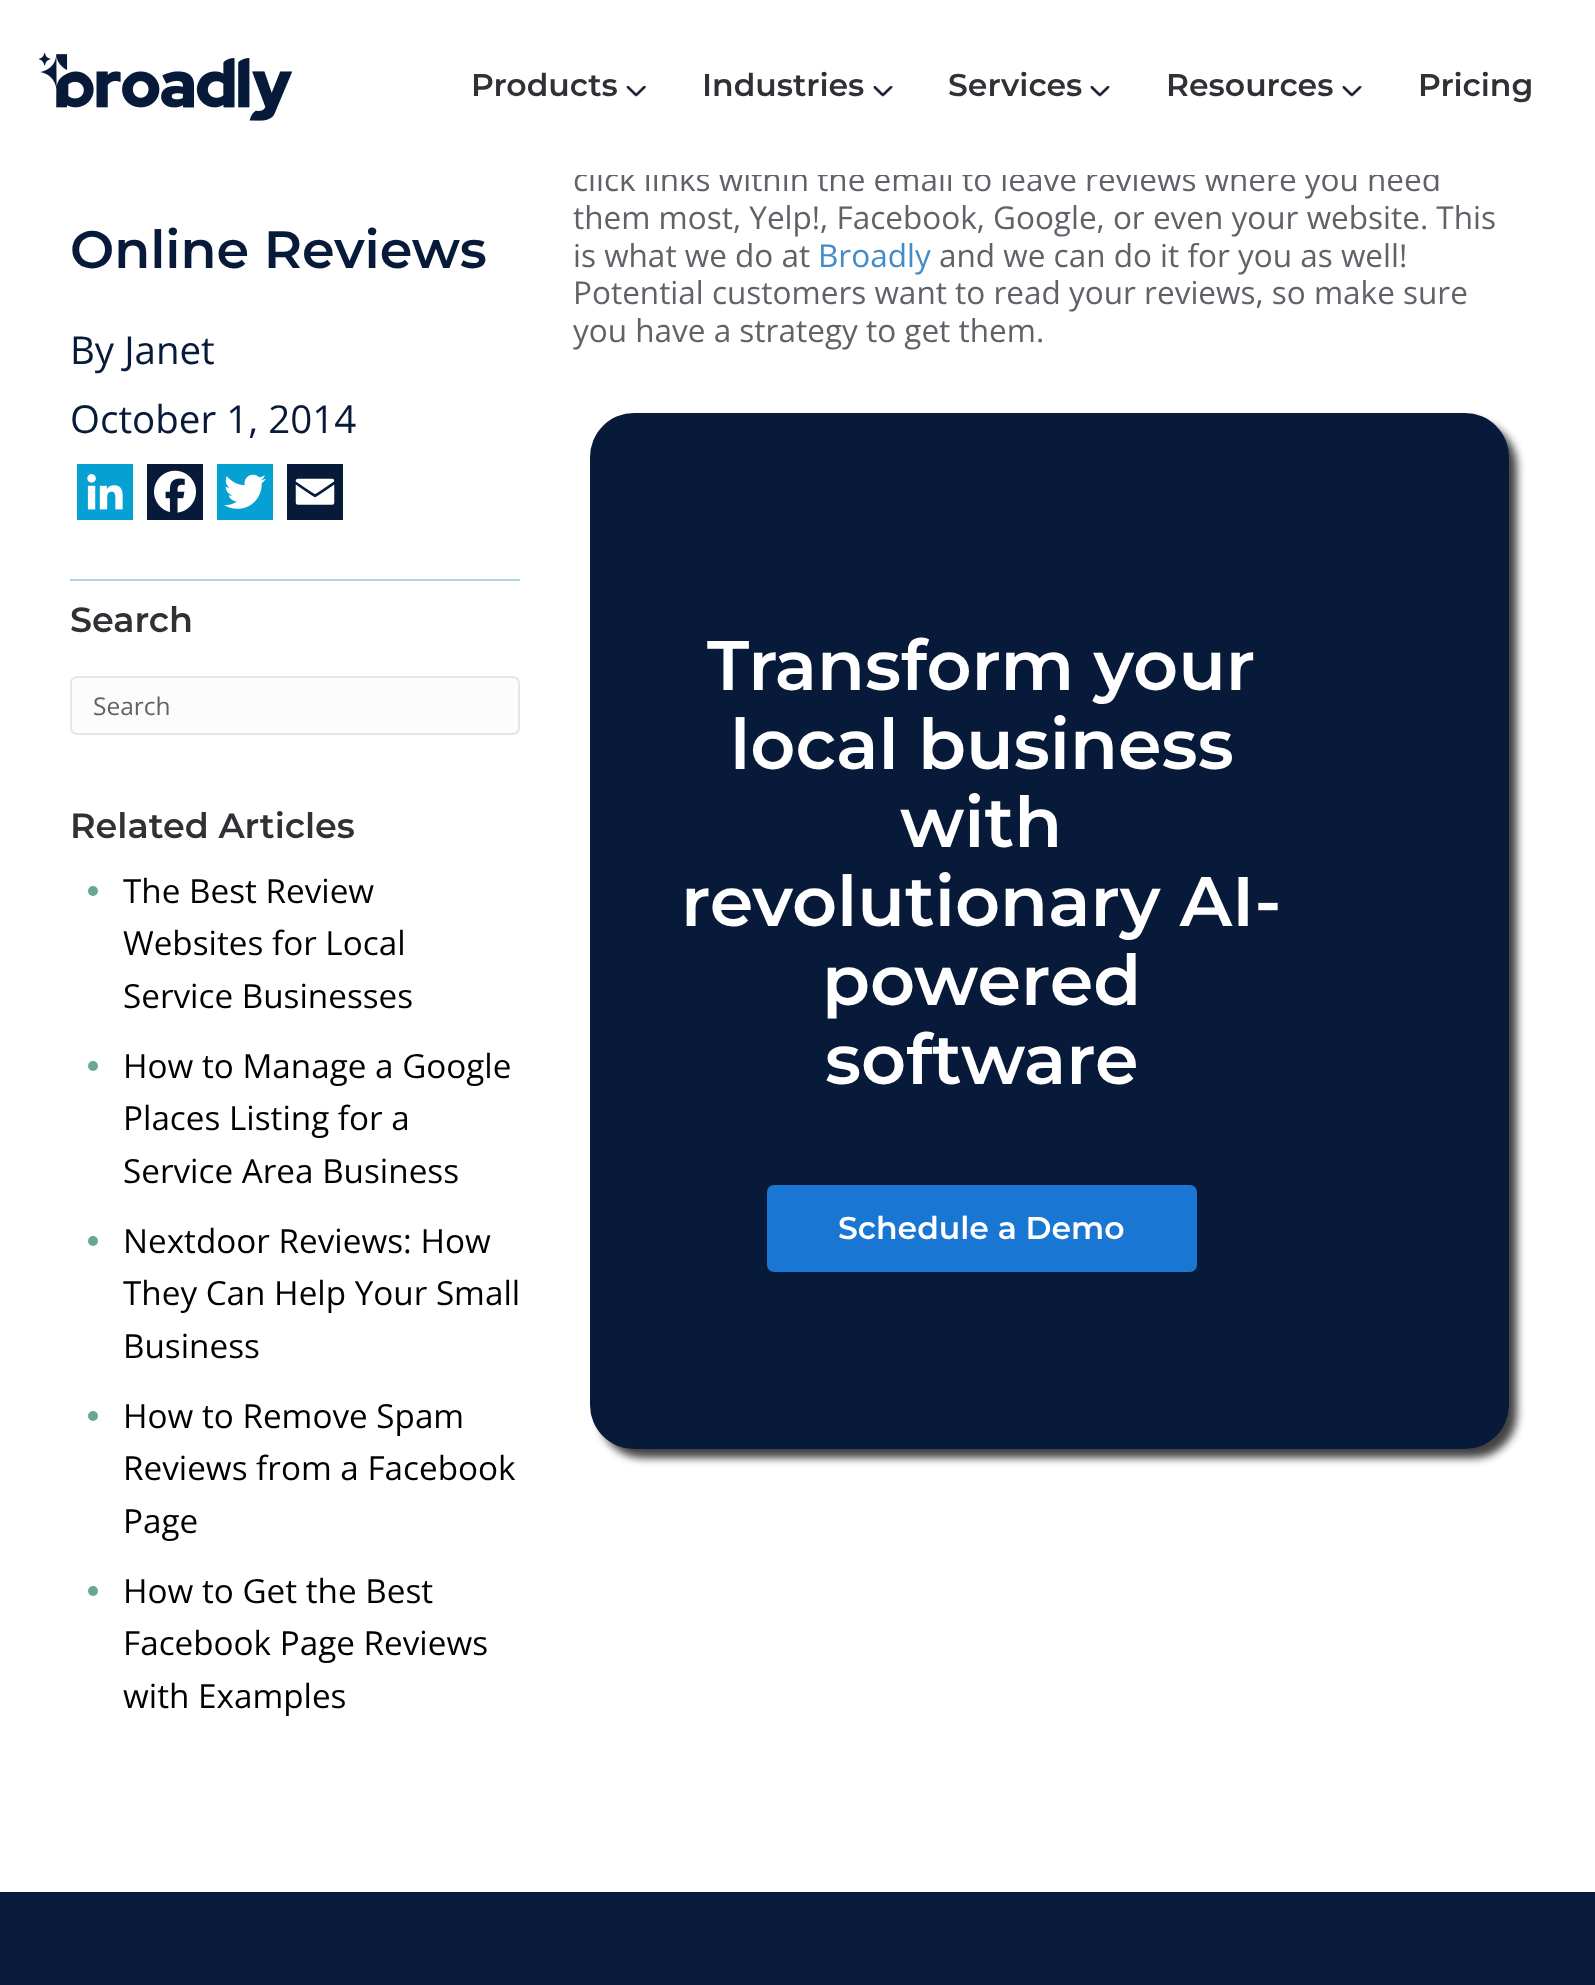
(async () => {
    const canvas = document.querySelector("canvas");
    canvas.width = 1595;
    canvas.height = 1985;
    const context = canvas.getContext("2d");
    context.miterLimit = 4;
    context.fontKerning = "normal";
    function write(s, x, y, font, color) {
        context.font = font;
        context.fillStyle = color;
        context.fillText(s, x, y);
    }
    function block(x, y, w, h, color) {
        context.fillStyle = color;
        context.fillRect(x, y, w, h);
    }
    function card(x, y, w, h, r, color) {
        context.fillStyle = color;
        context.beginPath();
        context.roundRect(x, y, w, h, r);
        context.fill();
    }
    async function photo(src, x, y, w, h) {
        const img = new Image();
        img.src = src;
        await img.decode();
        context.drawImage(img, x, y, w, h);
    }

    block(0, 0, 1595, 1985, "rgb(255, 255, 255)");
    write("click links within the email to leave reviews where you need", 573, 191, "31.5px Open Sans", "rgb(95, 99, 104)");
    block(578, 167, 861, 8, "rgb(255, 255, 255)");
    await photo("media/1.png", 39, 53, 253, 68);
    write("Products", 471, 96, "100 31.5px Montserrat", "rgb(47, 49, 52)");
    await photo("media/2.png", 626, 86, 20, 11);
    write("Industries", 702, 96, "100 31.5px Montserrat", "rgb(47, 49, 52)");
    await photo("media/3.png", 873, 86, 20, 11);
    write("Services", 948, 96, "100 31.5px Montserrat", "rgb(47, 49, 52)");
    await photo("media/3.png", 1090, 86, 20, 11);
    write("Resources", 1166, 96, "100 31.5px Montserrat", "rgb(47, 49, 52)");
    await photo("media/3.png", 1342, 86, 20, 11);
    write("Pricing", 1418, 96, "100 31.5px Montserrat", "rgb(47, 49, 52)");
    write("Online Reviews", 70, 268, "100 52.5px Montserrat", "rgb(7, 26, 57)");
    write("By Janet", 70, 364, "38.5px Open Sans", "rgb(7, 26, 57)");
    write("October 1, 2014", 70, 433, "38.5px Open Sans", "rgb(7, 26, 57)");
    block(70, 579, 450, 2, "rgb(176, 212, 228)");
    block(77, 464, 56, 56, "rgb(6, 161, 210)");
    await photo("media/4.png", 87, 474, 36, 36);
    block(147, 464, 56, 56, "rgb(7, 26, 57)");
    await photo("media/5.png", 154, 470, 42, 43);
    block(217, 464, 56, 56, "rgb(6, 161, 210)");
    await photo("media/6.png", 224, 474, 42, 35);
    block(287, 464, 56, 56, "rgb(7, 26, 57)");
    await photo("media/7.png", 295, 478, 40, 27);
    write("Search", 70, 632, "100 35px Montserrat", "rgb(47, 49, 52)");
    context.fillStyle = "rgb(252, 252, 252)";
    context.beginPath();
    context.roundRect(71, 677, 448, 57, 6);
    context.fill();
    context.strokeStyle = "rgb(230, 230, 230)";
    context.lineWidth = 2;
    context.stroke();
    write("Search", 93, 715, "24.5px Open Sans", "rgb(95, 99, 104)");
    write("Related Articles", 70, 838, "100 35px Montserrat", "rgb(47, 49, 52)");
    context.fillStyle = "rgb(104, 167, 146)";
    context.beginPath();
    context.arc(93, 891, 5, 0, Math.PI * 2);
    context.fill();
    write("The Best Review", 123, 903, "33.25px Open Sans", "rgb(0, 0, 0)");
    write("Websites for Local", 123, 955, "33.25px Open Sans", "rgb(0, 0, 0)");
    write("Service Businesses", 123, 1008, "33.25px Open Sans", "rgb(0, 0, 0)");
    context.fillStyle = "rgb(104, 167, 146)";
    context.beginPath();
    context.arc(93, 1066, 5, 0, Math.PI * 2);
    context.fill();
    write("How to Manage a Google", 123, 1078, "33.25px Open Sans", "rgb(0, 0, 0)");
    write("Places Listing for a", 123, 1130, "33.25px Open Sans", "rgb(0, 0, 0)");
    write("Service Area Business", 123, 1183, "33.25px Open Sans", "rgb(0, 0, 0)");
    context.fillStyle = "rgb(104, 167, 146)";
    context.beginPath();
    context.arc(93, 1241, 5, 0, Math.PI * 2);
    context.fill();
    write("Nextdoor Reviews: How", 123, 1253, "33.25px Open Sans", "rgb(0, 0, 0)");
    write("They Can Help Your Small", 123, 1305, "33.25px Open Sans", "rgb(0, 0, 0)");
    write("Business", 123, 1358, "33.25px Open Sans", "rgb(0, 0, 0)");
    context.fillStyle = "rgb(104, 167, 146)";
    context.beginPath();
    context.arc(93, 1416, 5, 0, Math.PI * 2);
    context.fill();
    write("How to Remove Spam", 123, 1428, "33.25px Open Sans", "rgb(0, 0, 0)");
    write("Reviews from a Facebook", 123, 1480, "33.25px Open Sans", "rgb(0, 0, 0)");
    write("Page", 123, 1533, "33.25px Open Sans", "rgb(0, 0, 0)");
    context.fillStyle = "rgb(104, 167, 146)";
    context.beginPath();
    context.arc(93, 1591, 5, 0, Math.PI * 2);
    context.fill();
    write("How to Get the Best", 123, 1603, "33.25px Open Sans", "rgb(0, 0, 0)");
    write("Facebook Page Reviews", 123, 1655, "33.25px Open Sans", "rgb(0, 0, 0)");
    write("with Examples", 123, 1708, "33.25px Open Sans", "rgb(0, 0, 0)");
    write("them most, Yelp!, Facebook, Google, or even your website. This", 573, 229, "31.5px Open Sans", "rgb(95, 99, 104)");
    write("is what we do at", 573, 267, "31.5px Open Sans", "rgb(95, 99, 104)");
    write("Broadly", 818, 267, "31.5px Open Sans", "rgb(66, 139, 202)");
    write("and we can do it for you as well!", 939, 267, "31.5px Open Sans", "rgb(95, 99, 104)");
    write("Potential customers want to read your reviews, so make sure", 573, 304, "31.5px Open Sans", "rgb(95, 99, 104)");
    write("you have a strategy to get them.", 573, 342, "31.5px Open Sans", "rgb(95, 99, 104)");
    context.fillStyle = "rgba(0, 0, 0, 0.74)";
    context.filter = "blur(4.5px)";
    context.beginPath();
    context.roundRect(599, 422, 918, 1036, 44);
    context.fill();
    context.filter = "none";
    card(590, 413, 919, 1036, 44, "rgb(7, 26, 57)");
    write("Transform your", 707, 690, "100 70px Montserrat", "rgb(255, 255, 255)");
    write("local business", 730, 769, "100 70px Montserrat", "rgb(255, 255, 255)");
    write("with", 900, 847, "100 70px Montserrat", "rgb(255, 255, 255)");
    write("revolutionary AI-", 681, 926, "100 70px Montserrat", "rgb(255, 255, 255)");
    write("powered", 822, 1005, "100 70px Montserrat", "rgb(255, 255, 255)");
    write("software", 825, 1084, "100 70px Montserrat", "rgb(255, 255, 255)");
    context.fillStyle = "rgb(25, 118, 210)";
    context.beginPath();
    context.roundRect(768, 1186, 428, 85, 6);
    context.fill();
    context.strokeStyle = "rgb(25, 118, 210)";
    context.stroke();
    write("Schedule a Demo", 838, 1239, "100 31.5px Montserrat", "rgb(255, 255, 255)");
    block(0, 1892, 1595, 93, "rgb(8, 27, 58)");
})();
